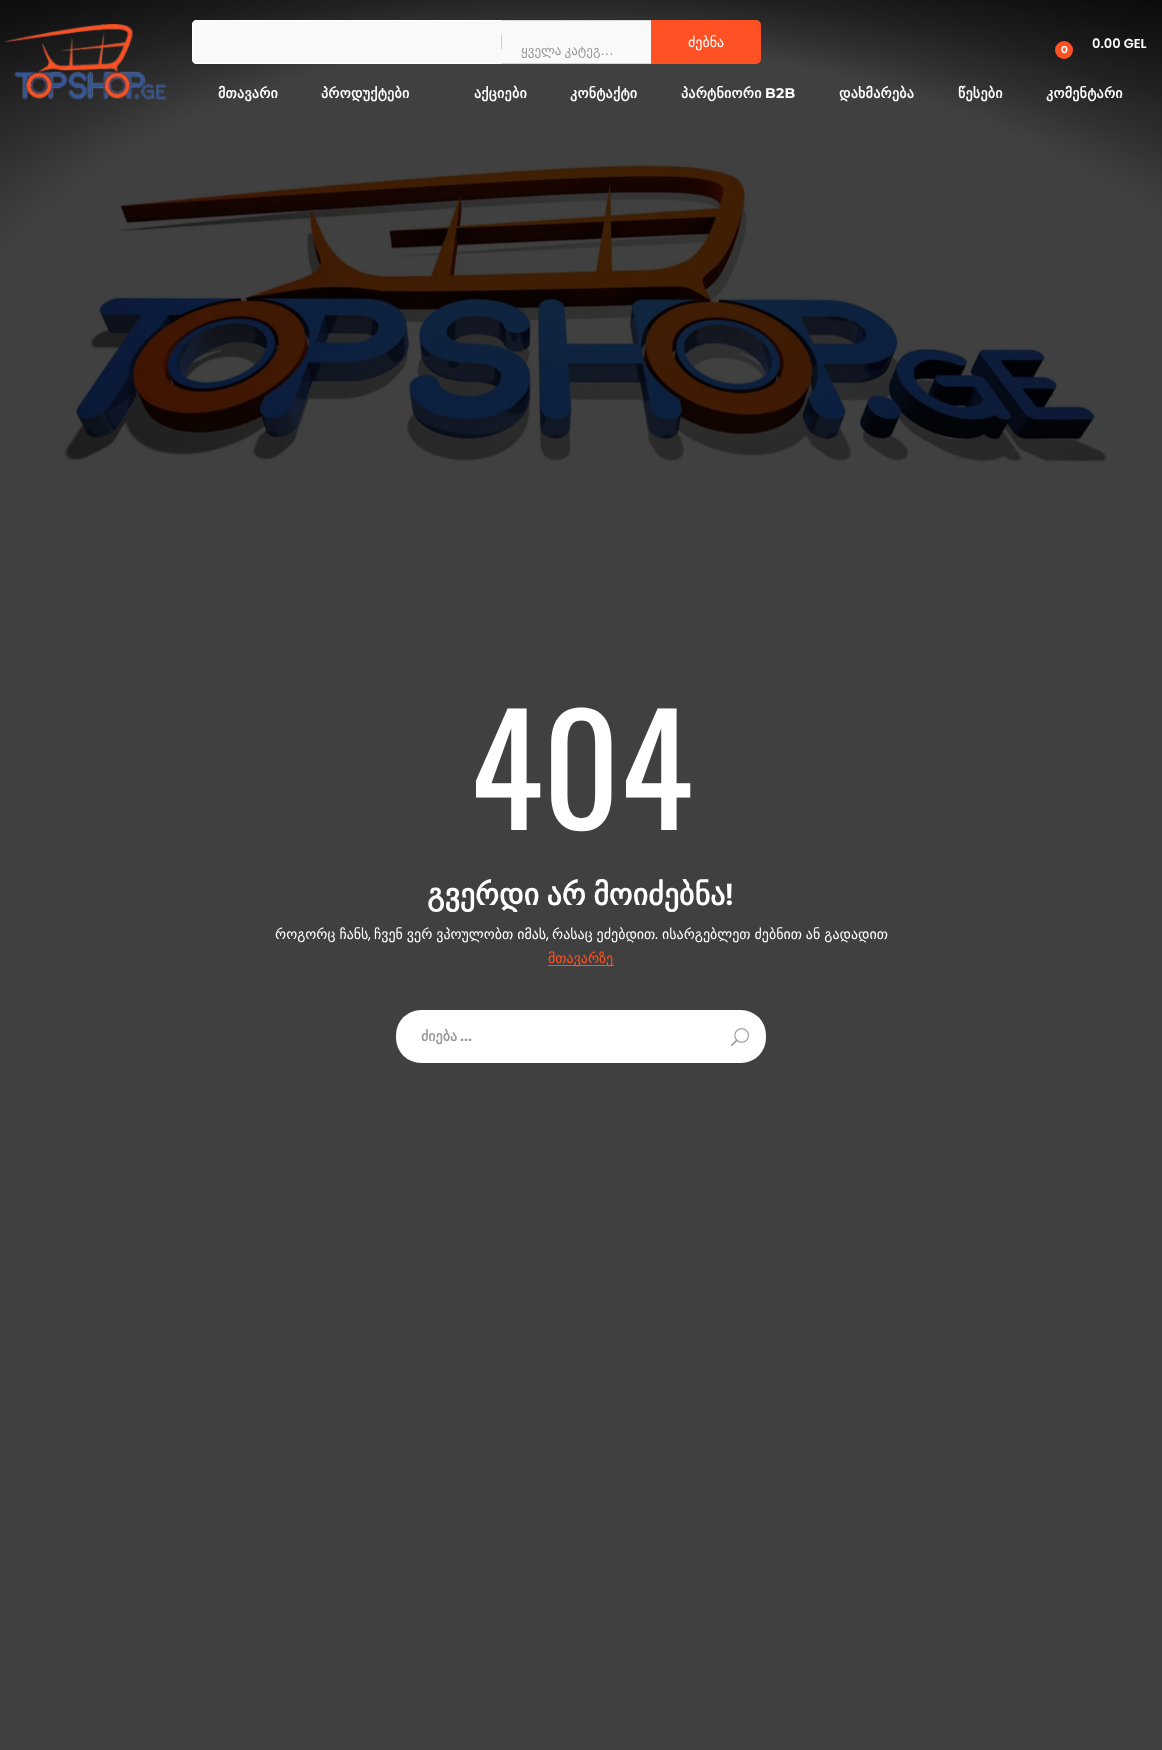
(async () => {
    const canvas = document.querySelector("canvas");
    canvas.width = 1162;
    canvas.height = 1750;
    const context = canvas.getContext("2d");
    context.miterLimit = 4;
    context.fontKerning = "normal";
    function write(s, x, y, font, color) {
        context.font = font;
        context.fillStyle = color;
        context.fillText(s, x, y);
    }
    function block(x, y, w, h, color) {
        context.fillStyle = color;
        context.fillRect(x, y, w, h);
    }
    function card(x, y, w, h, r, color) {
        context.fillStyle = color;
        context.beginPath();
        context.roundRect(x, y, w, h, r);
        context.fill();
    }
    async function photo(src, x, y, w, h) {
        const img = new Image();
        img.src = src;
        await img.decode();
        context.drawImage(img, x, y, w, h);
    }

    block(0, 0, 1162, 1750, "rgb(64, 64, 64)");
    await photo("media/2.png", 0, 0, 1162, 463);
    await photo("media/1.png", 4, 24, 163, 76);
    context.fillStyle = "rgb(249, 249, 249)";
    context.beginPath();
    context.roundRect(192, 20, 309, 44, [5, 0, 0, 5]);
    context.fill();
    context.fillStyle = "rgb(255, 255, 255)";
    context.beginPath();
    context.moveTo(197, 20);
    context.lineTo(501, 20);
    context.lineTo(501, 64);
    context.lineTo(197, 64);
    context.bezierCurveTo(194, 64, 192, 62, 192, 59);
    context.lineTo(192, 25);
    context.bezierCurveTo(192, 22, 194, 20, 197, 20);
    context.closePath();
    context.moveTo(197, 21);
    context.lineTo(501, 21);
    context.lineTo(501, 63);
    context.lineTo(197, 63);
    context.bezierCurveTo(195, 63, 193, 61, 193, 59);
    context.lineTo(193, 25);
    context.bezierCurveTo(193, 23, 195, 21, 197, 21);
    context.closePath();
    context.fill("evenodd");
    context.fillStyle = "rgb(255, 81, 36)";
    context.beginPath();
    context.roundRect(651, 20, 110, 44, [0, 5, 5, 0]);
    context.fill();
    write("ძებნა", 688, 47, "14px DejaVu Sans", "rgb(255, 255, 255)");
    block(501, 21, 150, 42, "rgb(249, 249, 249)");
    block(501, 20, 150, 1, "rgb(217, 217, 217)");
    block(501, 63, 150, 1, "rgb(217, 217, 217)");
    block(501, 35, 1, 14, "rgb(204, 204, 204)");
    context.wordSpacing = "-1px";
    write("ყველა კატეგ…", 521, 55, "13px DejaVu Sans", "rgb(153, 153, 153)");
    context.fillStyle = "rgb(255, 81, 36)";
    context.beginPath();
    context.arc(1064, 50, 9, 0, Math.PI * 2);
    context.fill();
    context.wordSpacing = "0px";
    write("0", 1061, 53, "bold 10px Montserrat", "rgb(255, 255, 255)");
    write("0.00 GEL", 1092, 48, "600 13px Poppins", "rgb(255, 255, 255)");
    context.letterSpacing = "0.25px";
    write("მთავარი", 218, 98, "bold 14px DejaVu Sans", "rgb(255, 255, 255)");
    write("პროდუქტები", 321, 98, "bold 14px DejaVu Sans", "rgb(255, 255, 255)");
    write("აქციები", 474, 98, "bold 14px DejaVu Sans", "rgb(255, 255, 255)");
    write("კონტაქტი", 570, 98, "bold 14px DejaVu Sans", "rgb(255, 255, 255)");
    write("პარტნიორი", 681, 98, "bold 14px DejaVu Sans", "rgb(255, 255, 255)");
    write("B2B", 765, 98, "bold 14px Montserrat", "rgb(255, 255, 255)");
    write("დახმარება", 839, 98, "bold 14px DejaVu Sans", "rgb(255, 255, 255)");
    write("წესები", 958, 98, "bold 14px DejaVu Sans", "rgb(255, 255, 255)");
    write("კომენტარი", 1046, 98, "bold 14px DejaVu Sans", "rgb(255, 255, 255)");
    context.letterSpacing = "0px";
    write("404", 470, 830, "150px Oswald", "rgb(255, 255, 255)");
    context.wordSpacing = "-2px";
    write("გვერდი არ მოიძებნა", 427, 905, "bold 30px DejaVu Sans", "rgb(255, 255, 255)");
    context.wordSpacing = "0px";
    write("!", 724, 905, "600 30px Poppins", "rgb(255, 255, 255)");
    context.wordSpacing = "-0.5px";
    write("როგორც ჩანს", 275, 939, "14px DejaVu Sans", "rgb(255, 255, 255)");
    context.wordSpacing = "0px";
    write(",", 368, 939, "14px Poppins", "rgb(255, 255, 255)");
    context.wordSpacing = "-0.5px";
    write("ჩვენ ვერ ვპოულობთ იმას", 374, 939, "14px DejaVu Sans", "rgb(255, 255, 255)");
    context.wordSpacing = "0px";
    write(",", 546, 939, "14px Poppins", "rgb(255, 255, 255)");
    context.wordSpacing = "-0.5px";
    write("რასაც ეძებდით", 552, 939, "14px DejaVu Sans", "rgb(255, 255, 255)");
    context.wordSpacing = "0px";
    write(".", 655, 939, "14px Poppins", "rgb(255, 255, 255)");
    context.wordSpacing = "-0.5px";
    write("ისარგებლეთ ძებნით ან გადადით", 662, 939, "14px DejaVu Sans", "rgb(255, 255, 255)");
    block(548, 965, 66, 1, "rgb(255, 81, 36)");
    context.wordSpacing = "0px";
    write("მთავარზე", 548, 963, "14px DejaVu Sans", "rgb(255, 81, 36)");
    card(396, 1010, 370, 53, 25, "rgb(255, 255, 255)");
    write("ძიება", 421, 1041, "bold 14px DejaVu Sans", "rgb(153, 153, 153)");
    write("...", 460, 1041, "bold 14px Poppins", "rgb(153, 153, 153)");
    await photo("media/3.png", 731, 1028, 18, 19);
})();
